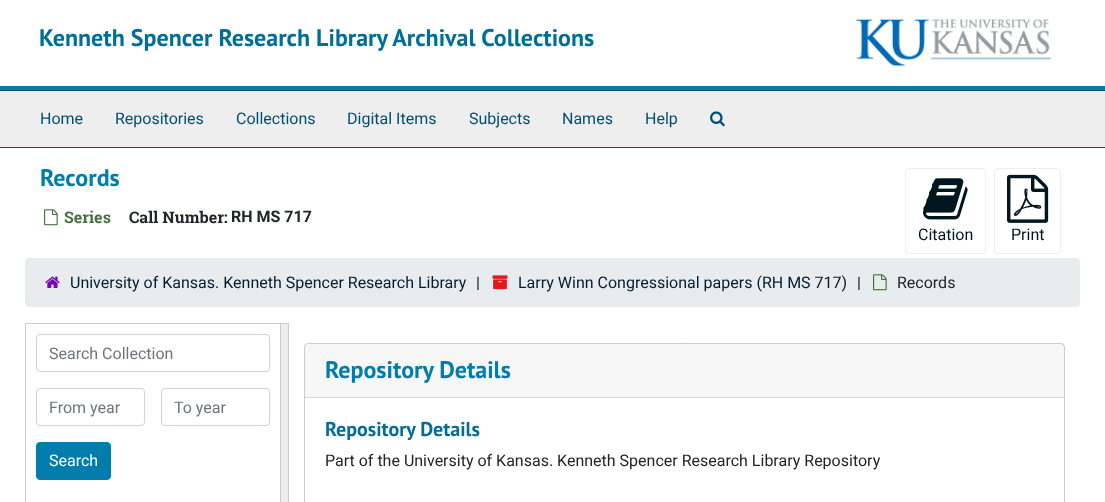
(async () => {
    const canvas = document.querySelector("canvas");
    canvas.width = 1105;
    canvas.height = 502;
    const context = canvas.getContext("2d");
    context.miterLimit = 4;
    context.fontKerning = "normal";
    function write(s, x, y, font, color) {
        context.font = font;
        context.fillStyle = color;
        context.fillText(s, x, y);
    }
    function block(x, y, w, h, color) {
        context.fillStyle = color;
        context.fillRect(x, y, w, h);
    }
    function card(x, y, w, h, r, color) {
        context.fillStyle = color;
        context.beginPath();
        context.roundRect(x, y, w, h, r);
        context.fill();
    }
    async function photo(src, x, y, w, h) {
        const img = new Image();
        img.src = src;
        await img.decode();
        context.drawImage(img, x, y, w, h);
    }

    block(0, 0, 1105, 502, "rgb(255, 255, 255)");
    block(0, 86, 1105, 4, "rgb(0, 124, 173)");
    write("Kenneth Spencer Research Library Archival Collections", 39, 46, "bold 24px PT Sans", "rgb(0, 110, 153)");
    await photo("media/1.png", 855, 18, 197, 49);
    block(0, 91, 1105, 56, "rgb(238, 238, 238)");
    block(0, 90, 1105, 1, "rgb(0, 79, 111)");
    block(0, 147, 1105, 1, "rgb(0, 79, 111)");
    write("Home", 40, 124, "16px Roboto", "rgb(0, 79, 111)");
    write("Repositories", 115, 124, "16px Roboto", "rgb(0, 79, 111)");
    write("Collections", 236, 124, "16px Roboto", "rgb(0, 79, 111)");
    write("Digital Items", 347, 124, "16px Roboto", "rgb(0, 79, 111)");
    write("Subjects", 469, 124, "16px Roboto", "rgb(0, 79, 111)");
    write("Names", 562, 124, "16px Roboto", "rgb(0, 79, 111)");
    write("Help", 645, 124, "16px Roboto", "rgb(0, 79, 111)");
    await photo("media/2.png", 710, 111, 15, 16);
    write("Records", 40, 186, "bold 24px PT Sans", "rgb(0, 124, 173)");
    await photo("media/3.png", 44, 209, 14, 17);
    write("Series", 64, 223, "bold 16px Roboto Slab", "rgb(69, 113, 65)");
    write("Call Number:", 129, 223, "bold 16px Roboto Slab", "rgb(33, 37, 41)");
    write("RH MS 717", 231, 222, "bold 16px Roboto", "rgb(33, 37, 41)");
    context.beginPath();
    context.roundRect(905.5, 168.5, 80, 85, 3.5);
    context.strokeStyle = "rgb(238, 238, 238)";
    context.stroke();
    await photo("media/4.png", 923, 178, 45, 42);
    write("Citation", 918, 240, "16px Roboto", "rgb(0, 23, 31)");
    context.beginPath();
    context.roundRect(994.5, 168.5, 66, 85, 3.5);
    context.stroke();
    await photo("media/5.png", 1007, 174, 42, 49);
    write("Print", 1011, 240, "16px Roboto", "rgb(0, 23, 31)");
    card(25, 258, 1055, 49, 4, "rgb(233, 236, 239)");
    await photo("media/6.png", 45, 276, 15, 12);
    write("University of Kansas. Kenneth Spencer Research Library", 70, 288, "16px Roboto", "rgb(4, 28, 47)");
    write("|", 476, 288, "16px Roboto", "rgb(0, 23, 31)");
    await photo("media/7.png", 492, 275, 16, 15);
    write("Larry Winn Congressional papers (RH MS 717)", 518, 288, "16px Roboto", "rgb(4, 28, 47)");
    write("|", 857, 288, "16px Roboto", "rgb(0, 23, 31)");
    await photo("media/8.png", 873, 274, 14, 17);
    write("Records", 897, 288, "16px Roboto", "rgb(33, 37, 41)");
    context.strokeStyle = "rgb(204, 204, 204)";
    context.strokeRect(25.5, 323.5, 263, 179);
    context.beginPath();
    context.roundRect(36.5, 334.5, 233, 37, 3.5);
    context.strokeStyle = "rgb(206, 212, 218)";
    context.stroke();
    write("Search Collection", 49, 359, "16px Roboto", "rgb(108, 117, 125)");
    context.beginPath();
    context.roundRect(36.5, 388.5, 108, 37, 3.5);
    context.stroke();
    write("From year", 49, 413, "16px Roboto", "rgb(108, 117, 125)");
    context.beginPath();
    context.roundRect(161.5, 388.5, 108, 37, 3.5);
    context.stroke();
    write("To year", 174, 413, "16px Roboto", "rgb(108, 117, 125)");
    context.fillStyle = "rgb(0, 124, 173)";
    context.beginPath();
    context.roundRect(36.5, 442.5, 74, 37, 3.5);
    context.fill();
    context.strokeStyle = "rgb(0, 124, 173)";
    context.stroke();
    write("Search", 49, 466, "16px Roboto", "rgb(255, 255, 255)");
    block(281, 324, 7, 178, "rgb(238, 238, 238)");
    block(280, 324, 1, 178, "rgb(204, 204, 204)");
    context.beginPath();
    context.roundRect(304.5, 343.5, 760, 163, 3.5);
    context.strokeStyle = "rgb(204, 204, 204)";
    context.stroke();
    block(305, 344, 759, 53, "rgba(0, 0, 0, 0.03)");
    block(305, 397, 759, 1, "rgb(216, 216, 216)");
    write("Repository Details", 325, 378, "bold 24px PT Sans", "rgb(0, 124, 173)");
    write("Repository Details", 325, 436, "bold 20px PT Sans", "rgb(0, 110, 153)");
    write("Part of the University of Kansas. Kenneth Spencer Research Library Repository", 325, 466, "16px Roboto", "rgb(33, 37, 41)");
})();
